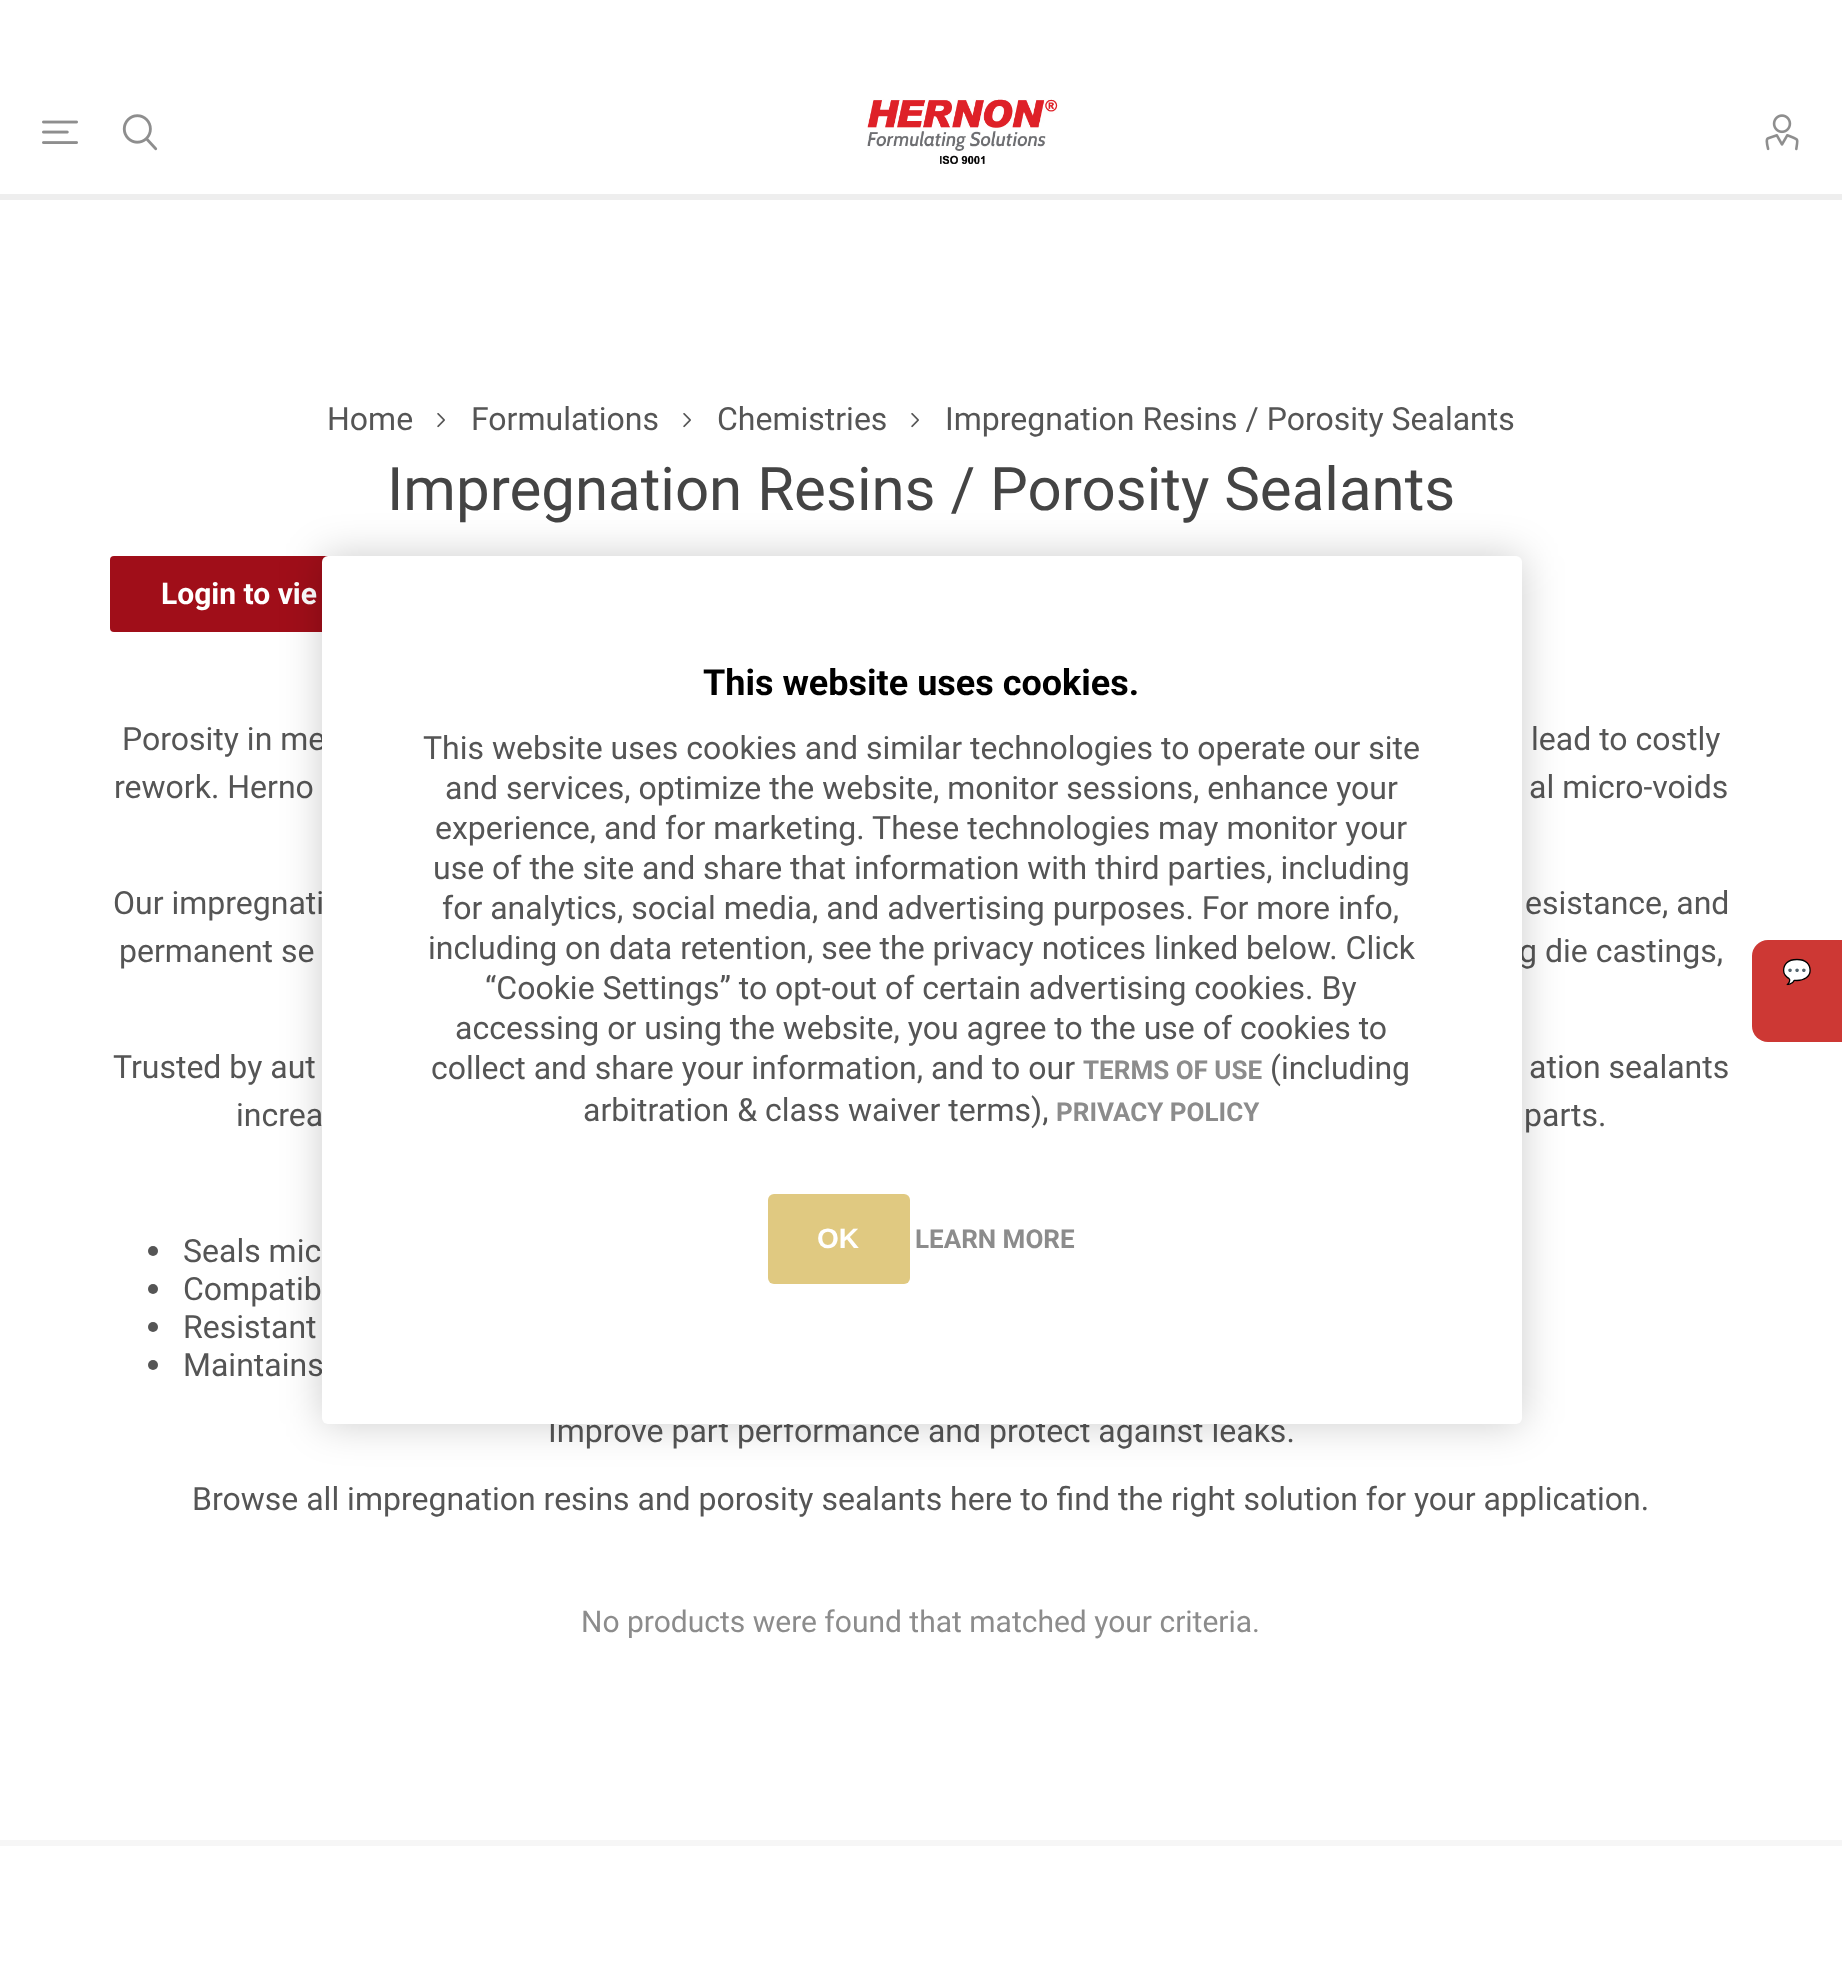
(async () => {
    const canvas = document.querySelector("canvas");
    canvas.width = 1842;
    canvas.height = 1977;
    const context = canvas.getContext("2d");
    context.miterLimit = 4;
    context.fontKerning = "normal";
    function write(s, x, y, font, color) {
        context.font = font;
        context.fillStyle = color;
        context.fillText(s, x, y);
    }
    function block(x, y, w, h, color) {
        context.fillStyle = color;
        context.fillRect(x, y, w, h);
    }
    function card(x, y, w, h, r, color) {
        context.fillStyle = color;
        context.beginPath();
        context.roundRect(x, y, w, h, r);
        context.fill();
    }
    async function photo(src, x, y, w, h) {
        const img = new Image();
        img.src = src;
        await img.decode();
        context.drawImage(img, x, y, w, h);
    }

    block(0, 0, 1842, 1977, "rgb(255, 255, 255)");
    block(0, 194, 1842, 6, "rgb(238, 238, 238)");
    await photo("media/1.png", 42, 120, 36, 24);
    await photo("media/2.png", 122, 114, 36, 37);
    await photo("media/3.png", 867, 99, 191, 65);
    await photo("media/4.png", 1765, 114, 34, 37);
    write("Home", 327, 430, "32px Roboto", "rgb(85, 85, 85)");
    await photo("media/5.png", 437, 413, 8, 15);
    write("Formulations", 471, 430, "32px Roboto", "rgb(85, 85, 85)");
    await photo("media/5.png", 683, 413, 8, 15);
    write("Chemistries", 717, 430, "32px Roboto", "rgb(85, 85, 85)");
    await photo("media/5.png", 911, 413, 8, 15);
    write("Impregnation Resins / Porosity Sealants", 945, 430, "32px Roboto", "rgb(85, 85, 85)");
    write("Impregnation Resins / Porosity Sealants", 387, 510, "60px Roboto", "rgb(68, 68, 68)");
    card(110, 556, 380, 76, 4, "rgb(160, 14, 25)");
    write("Login to vie", 161, 604, "bold 30px Roboto", "rgb(255, 255, 255)");
    write("Porosity in me", 122, 750, "32px Roboto", "rgb(85, 85, 85)");
    write("lead to costly", 1531, 750, "32px Roboto", "rgb(85, 85, 85)");
    write("rework. Herno", 114, 798, "32px Roboto", "rgb(85, 85, 85)");
    write("al micro-voids", 1529, 798, "32px Roboto", "rgb(85, 85, 85)");
    write("Our impregnati", 113, 914, "32px Roboto", "rgb(85, 85, 85)");
    write("esistance, and", 1525, 914, "32px Roboto", "rgb(85, 85, 85)");
    write("permanent se", 119, 962, "32px Roboto", "rgb(85, 85, 85)");
    write("g die castings,", 1519, 962, "32px Roboto", "rgb(85, 85, 85)");
    write("Trusted by aut", 113, 1078, "32px Roboto", "rgb(85, 85, 85)");
    write("ation sealants", 1529, 1078, "32px Roboto", "rgb(85, 85, 85)");
    write("increa", 236, 1126, "32px Roboto", "rgb(85, 85, 85)");
    write("parts.", 1524, 1126, "32px Roboto", "rgb(85, 85, 85)");
    context.beginPath();
    context.arc(153, 1251, 5, 0, Math.PI * 2);
    context.fill();
    write("Seals mic", 183, 1262, "32px Roboto", "rgb(85, 85, 85)");
    context.beginPath();
    context.arc(153, 1289, 5, 0, Math.PI * 2);
    context.fill();
    write("Compatib", 183, 1300, "32px Roboto", "rgb(85, 85, 85)");
    context.beginPath();
    context.arc(153, 1327, 5, 0, Math.PI * 2);
    context.fill();
    write("Resistant", 183, 1338, "32px Roboto", "rgb(85, 85, 85)");
    context.beginPath();
    context.arc(153, 1365, 5, 0, Math.PI * 2);
    context.fill();
    write("Maintains", 183, 1376, "32px Roboto", "rgb(85, 85, 85)");
    write("Improve part performance and protect against leaks.", 548, 1442, "32px Roboto", "rgb(85, 85, 85)");
    write("Browse all impregnation resins and porosity sealants here to find the right solution for your application.", 192, 1510, "32px Roboto", "rgb(85, 85, 85)");
    write("No products were found that matched your criteria.", 581, 1632, "30px Roboto", "rgb(140, 140, 140)");
    block(0, 1840, 1842, 6, "rgb(246, 246, 246)");
    context.fillStyle = "rgba(0, 0, 0, 0.2)";
    context.filter = "blur(20px)";
    context.beginPath();
    context.roundRect(322, 556, 1200, 868, 6);
    context.fill();
    context.filter = "none";
    card(322, 556, 1200, 868, 6, "rgb(255, 255, 255)");
    write("This website uses cookies.", 703, 695, "bold 36px Roboto", "rgb(0, 0, 0)");
    write("This website uses cookies and similar technologies to operate our site", 423, 759, "32px Roboto", "rgb(85, 85, 85)");
    write("and services, optimize the website, monitor sessions, enhance your", 445, 799, "32px Roboto", "rgb(85, 85, 85)");
    write("experience, and for marketing. These technologies may monitor your", 435, 839, "32px Roboto", "rgb(85, 85, 85)");
    write("use of the site and share that information with third parties, including", 433, 879, "32px Roboto", "rgb(85, 85, 85)");
    write("for analytics, social media, and advertising purposes. For more info,", 442, 919, "32px Roboto", "rgb(85, 85, 85)");
    write("including on data retention, see the privacy notices linked below. Click", 428, 959, "32px Roboto", "rgb(85, 85, 85)");
    write("“Cookie Settings” to opt-out of certain advertising cookies. By", 485, 999, "32px Roboto", "rgb(85, 85, 85)");
    write("accessing or using the website, you agree to the use of cookies to", 455, 1039, "32px Roboto", "rgb(85, 85, 85)");
    write("collect and share your information, and to our", 431, 1079, "32px Roboto", "rgb(85, 85, 85)");
    write("TERMS OF USE", 1083, 1079, "bold 26px Roboto", "rgb(140, 140, 140)");
    write("(including", 1270, 1079, "32px Roboto", "rgb(85, 85, 85)");
    write("arbitration & class waiver terms),", 583, 1121, "32px Roboto", "rgb(85, 85, 85)");
    write("PRIVACY POLICY", 1056, 1121, "bold 26px Roboto", "rgb(140, 140, 140)");
    card(768, 1194, 142, 90, 6, "rgb(224, 201, 129)");
    write("OK", 817, 1248, "bold 28px Liberation Sans", "rgb(255, 255, 255)");
    write("LEARN MORE", 915, 1248, "bold 26px Roboto", "rgb(140, 140, 140)");
    context.fillStyle = "rgb(205, 56, 52)";
    context.beginPath();
    context.roundRect(1752, 940, 90, 102, [16, 0, 0, 16]);
    context.fill();
    write("💬", 1782, 980, "24px Noto Color Emoji", "rgb(255, 255, 255)");
})();
